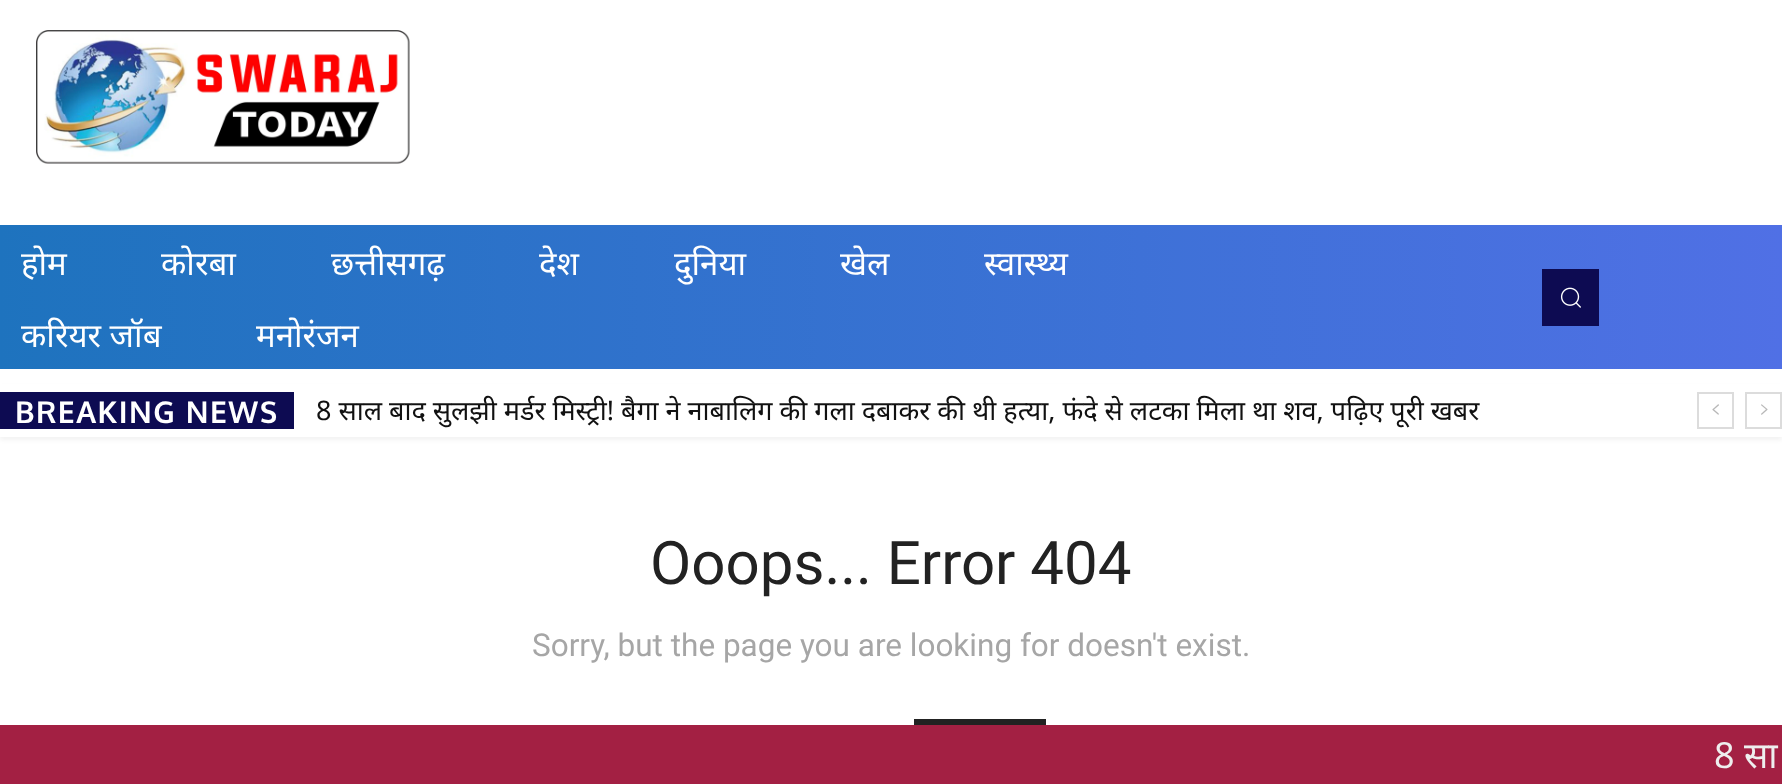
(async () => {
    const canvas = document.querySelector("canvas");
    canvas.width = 1782;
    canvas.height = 784;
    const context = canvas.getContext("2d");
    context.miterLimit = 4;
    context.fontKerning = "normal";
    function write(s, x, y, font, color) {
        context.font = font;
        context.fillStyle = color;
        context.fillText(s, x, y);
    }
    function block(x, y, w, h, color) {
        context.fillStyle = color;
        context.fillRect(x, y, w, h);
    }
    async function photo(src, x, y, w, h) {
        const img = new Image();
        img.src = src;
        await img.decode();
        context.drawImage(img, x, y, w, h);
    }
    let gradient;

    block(0, 0, 1782, 784, "rgb(255, 255, 255)");
    await photo("media/1.png", 36, 30, 374, 134);
    gradient = context.createLinearGradient(1782, 297, 0, 297);
    gradient.addColorStop(0, "rgb(80, 112, 229)");
    gradient.addColorStop(1, "rgb(30, 115, 190)");
    context.fillStyle = gradient;
    context.fillRect(0, 225, 1782, 144);
    write("होम", 21, 275, "33px Noto Sans", "rgb(255, 255, 255)");
    write("कोरबा", 161, 275, "33px Noto Sans", "rgb(255, 255, 255)");
    write("छत्तीसगढ़", 331, 275, "33px Noto Sans", "rgb(255, 255, 255)");
    write("देश", 539, 275, "33px Noto Sans", "rgb(255, 255, 255)");
    write("दुनिया", 674, 275, "33px Noto Sans", "rgb(255, 255, 255)");
    write("खेल", 840, 275, "33px Noto Sans", "rgb(255, 255, 255)");
    write("स्वास्थ्य", 984, 275, "33px Noto Sans", "rgb(255, 255, 255)");
    write("करियर जॉब", 21, 347, "33px Noto Sans", "rgb(255, 255, 255)");
    write("मनोरंजन", 256, 347, "33px Noto Sans", "rgb(255, 255, 255)");
    block(1542, 269, 57, 57, "rgb(13, 11, 82)");
    await photo("media/2.png", 1560, 287, 21, 21);
    block(0, 392, 294, 37, "rgb(13, 11, 82)");
    context.strokeStyle = "rgb(220, 220, 220)";
    context.lineWidth = 2;
    context.strokeRect(1698, 393, 35, 35);
    await photo("media/3.png", 1712, 404, 7, 11);
    context.strokeRect(1746, 393, 35, 35);
    await photo("media/4.png", 1761, 404, 7, 11);
    context.save();
    context.beginPath();
    context.moveTo(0, 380);
    context.lineTo(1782, 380);
    context.lineTo(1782, 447);
    context.lineTo(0, 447);
    context.closePath();
    context.moveTo(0, 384);
    context.lineTo(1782, 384);
    context.lineTo(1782, 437);
    context.lineTo(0, 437);
    context.closePath();
    context.clip("evenodd");
    context.fillStyle = "rgba(0, 0, 0, 0.05)";
    context.filter = "blur(2px)";
    context.beginPath();
    context.rect(0, 387, 1782, 53);
    context.fill();
    context.filter = "none";
    context.restore();
    context.letterSpacing = "1.5px";
    write("BREAKING NEWS", 15, 423, "bold 30px Oxygen", "rgb(255, 255, 255)");
    context.letterSpacing = "0px";
    write("8 साल बाद सुलझी मर्डर मिस्ट्री! बैगा ने नाबालिग की गला दबाकर की थी हत्या, फंदे से लटका मिला था शव, पढ़िए पूरी खबर", 316, 420, "27px Noto Sans", "rgb(17, 17, 17)");
    write("Ooops... Error 404", 650, 584, "60px Roboto", "rgb(34, 34, 34)");
    write("Sorry, but the page you are looking for doesn't exist.", 532, 656, "31.5px Roboto", "rgb(166, 166, 166)");
    block(914, 719, 132, 6, "rgb(34, 34, 34)");
    block(0, 725, 1782, 59, "rgb(163, 32, 67)");
    write("8 सा", 1714, 768, "36px Noto Sans", "rgb(238, 238, 238)");
})();
